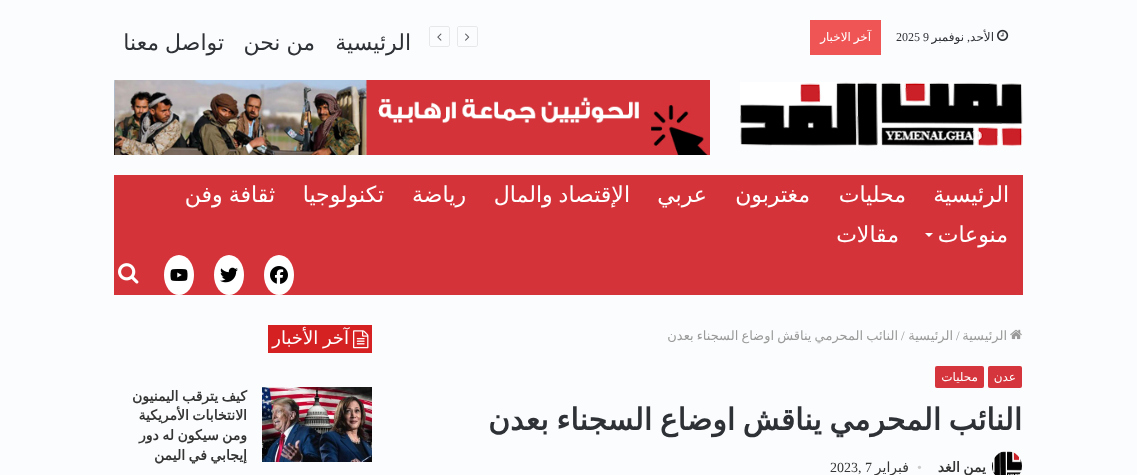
(async () => {
    const canvas = document.querySelector("canvas");
    canvas.width = 1137;
    canvas.height = 475;
    const context = canvas.getContext("2d");
    context.miterLimit = 4;
    context.fontKerning = "normal";
    function write(s, x, y, font, color) {
        context.font = font;
        context.fillStyle = color;
        context.fillText(s, x, y);
    }
    function block(x, y, w, h, color) {
        context.fillStyle = color;
        context.fillRect(x, y, w, h);
    }
    function card(x, y, w, h, r, color) {
        context.fillStyle = color;
        context.beginPath();
        context.roundRect(x, y, w, h, r);
        context.fill();
    }
    async function photo(src, x, y, w, h) {
        const img = new Image();
        img.src = src;
        await img.decode();
        context.drawImage(img, x, y, w, h);
    }

    block(0, 0, 1137, 475, "rgb(251, 252, 253)");
    await photo("media/1.png", 997, 29, 12, 12);
    context.direction = "rtl";
    write("الأحد", 994, 41, "12px DejaVu Sans", "rgb(46, 49, 54)");
    write(",", 970, 41, "12px Liberation Serif", "rgb(46, 49, 54)");
    write("نوفمبر", 964, 41, "12px DejaVu Sans", "rgb(46, 49, 54)");
    context.direction = "ltr";
    write("2025 9", 896, 41, "12px Liberation Serif", "rgb(46, 49, 54)");
    block(810, 20, 71, 35, "rgb(240, 85, 85)");
    context.wordSpacing = "-1px";
    context.direction = "rtl";
    write("آخر الاخبار", 871, 41, "12px DejaVu Sans", "rgb(255, 255, 255)");
    context.beginPath();
    context.moveTo(476, 46.5);
    context.lineTo(459, 46.5);
    context.bezierCurveTo(458, 46.5, 457.5, 46, 457.5, 45);
    context.lineTo(457.5, 28);
    context.bezierCurveTo(457.5, 27, 458, 26.5, 459, 26.5);
    context.lineTo(476, 26.5);
    context.bezierCurveTo(476.5, 26.5, 477.5, 27, 477.5, 28);
    context.lineTo(477.5, 45);
    context.bezierCurveTo(477.5, 46, 476.5, 46.5, 476, 46.5);
    context.closePath();
    context.strokeStyle = "rgb(231, 232, 233)";
    context.stroke();
    await photo("media/2.png", 465, 33, 5, 8);
    context.beginPath();
    context.moveTo(448, 46.5);
    context.lineTo(431, 46.5);
    context.bezierCurveTo(430, 46.5, 429.5, 46, 429.5, 45);
    context.lineTo(429.5, 28);
    context.bezierCurveTo(429.5, 27, 430, 26.5, 431, 26.5);
    context.lineTo(448, 26.5);
    context.bezierCurveTo(448.5, 26.5, 449.5, 27, 449.5, 28);
    context.lineTo(449.5, 45);
    context.bezierCurveTo(449.5, 46, 448.5, 46.5, 448, 46.5);
    context.closePath();
    context.stroke();
    await photo("media/3.png", 437, 33, 5, 8);
    context.wordSpacing = "0px";
    write("الرئيسية", 411, 50, "22px DejaVu Sans", "rgb(46, 49, 54)");
    context.wordSpacing = "-1px";
    write("من نحن", 315, 50, "22px DejaVu Sans", "rgb(46, 49, 54)");
    write("تواصل معنا", 224, 50, "22px DejaVu Sans", "rgb(46, 49, 54)");
    await photo("media/4.png", 740, 82, 283, 64);
    await photo("media/5.png", 114, 80, 596, 75);
    block(114, 175, 909, 120, "rgb(213, 51, 58)");
    context.wordSpacing = "0px";
    write("الرئيسية", 1009, 202, "22px DejaVu Sans", "rgb(255, 255, 255)");
    write("محليات", 906, 202, "22px DejaVu Sans", "rgb(255, 255, 255)");
    write("مغتربون", 810, 202, "22px DejaVu Sans", "rgb(255, 255, 255)");
    write("عربي", 707, 202, "22px DejaVu Sans", "rgb(255, 255, 255)");
    context.wordSpacing = "-1px";
    write("الإقتصاد والمال", 630, 202, "22px DejaVu Sans", "rgb(255, 255, 255)");
    context.wordSpacing = "0px";
    write("رياضة", 466, 202, "22px DejaVu Sans", "rgb(255, 255, 255)");
    write("تكنولوجيا", 384, 202, "22px DejaVu Sans", "rgb(255, 255, 255)");
    context.wordSpacing = "-1px";
    write("ثقافة وفن", 275, 202, "22px DejaVu Sans", "rgb(255, 255, 255)");
    context.wordSpacing = "0px";
    write("منوعات", 1008, 242, "22px DejaVu Sans", "rgb(255, 255, 255)");
    context.beginPath();
    context.moveTo(925, 233);
    context.lineTo(933, 233);
    context.lineTo(929, 237);
    context.closePath();
    context.fill();
    write("مقالات", 899, 242, "22px DejaVu Sans", "rgb(255, 255, 255)");
    context.beginPath();
    context.ellipse(279, 275, 15, 20, 0, 0, Math.PI * 2);
    context.fill();
    await photo("media/6.png", 270, 266, 18, 18);
    context.beginPath();
    context.ellipse(229, 275, 15, 20, 0, 0, Math.PI * 2);
    context.fill();
    await photo("media/7.png", 220, 267, 18, 16);
    context.beginPath();
    context.ellipse(179, 275, 15, 20, 0, 0, Math.PI * 2);
    context.fill();
    await photo("media/8.png", 170, 269, 18, 12);
    await photo("media/9.png", 118, 263, 21, 21);
    await photo("media/10.png", 1010, 329, 12, 11);
    write("الرئيسية", 1007, 340, "13px DejaVu Sans", "rgb(154, 154, 154)");
    context.direction = "ltr";
    write("/", 956, 340, "13px Liberation Serif", "rgb(154, 154, 154)");
    context.direction = "rtl";
    write("الرئيسية", 953, 340, "13px DejaVu Sans", "rgb(154, 154, 154)");
    context.direction = "ltr";
    write("/", 901, 340, "13px Liberation Serif", "rgb(154, 154, 154)");
    context.wordSpacing = "-1px";
    context.direction = "rtl";
    write("النائب المحرمي يناقش اوضاع السجناء بعدن", 898, 340, "13px DejaVu Sans", "rgb(154, 154, 154)");
    card(988, 366, 34, 22, 2, "rgb(213, 53, 60)");
    context.wordSpacing = "0px";
    write("عدن", 1016, 381, "12px DejaVu Sans", "rgb(255, 255, 255)");
    card(935, 366, 49, 22, 2, "rgb(213, 53, 60)");
    write("محليات", 978, 381, "12px DejaVu Sans", "rgb(255, 255, 255)");
    context.wordSpacing = "-2px";
    write("النائب المحرمي يناقش اوضاع السجناء بعدن", 1022, 430, "bold 30px DejaVu Sans", "rgb(46, 49, 54)");
    await photo("media/11.png", 992, 451, 30, 24);
    context.wordSpacing = "-1px";
    write("يمن الغد", 986, 472, "bold 14px DejaVu Sans", "rgb(53, 53, 53)");
    context.wordSpacing = "0px";
    context.direction = "ltr";
    write("•", 917, 472, "14px Liberation Serif", "rgb(204, 204, 204)");
    context.direction = "rtl";
    write("فبراير", 909, 472, "14px DejaVu Sans", "rgb(53, 53, 53)");
    context.direction = "ltr";
    write("2023, 7", 830, 472, "14px Liberation Serif", "rgb(53, 53, 53)");
    block(268, 325, 104, 28, "rgb(213, 33, 33)");
    await photo("media/12.png", 353, 330, 16, 19);
    context.wordSpacing = "-1px";
    context.direction = "rtl";
    write("آخر الأخبار", 349, 344, "18px DejaVu Sans", "rgb(255, 255, 255)");
    await photo("media/13.png", 262, 387, 110, 75);
    write("كيف يترقب اليمنيون", 247, 401, "bold 14px DejaVu Sans", "rgb(53, 53, 53)");
    write("الانتخابات الأمريكية", 247, 420, "bold 14px DejaVu Sans", "rgb(53, 53, 53)");
    write("ومن سيكون له دور", 247, 440, "bold 14px DejaVu Sans", "rgb(53, 53, 53)");
    write("إيجابي في اليمن", 247, 460, "bold 14px DejaVu Sans", "rgb(53, 53, 53)");
})();
